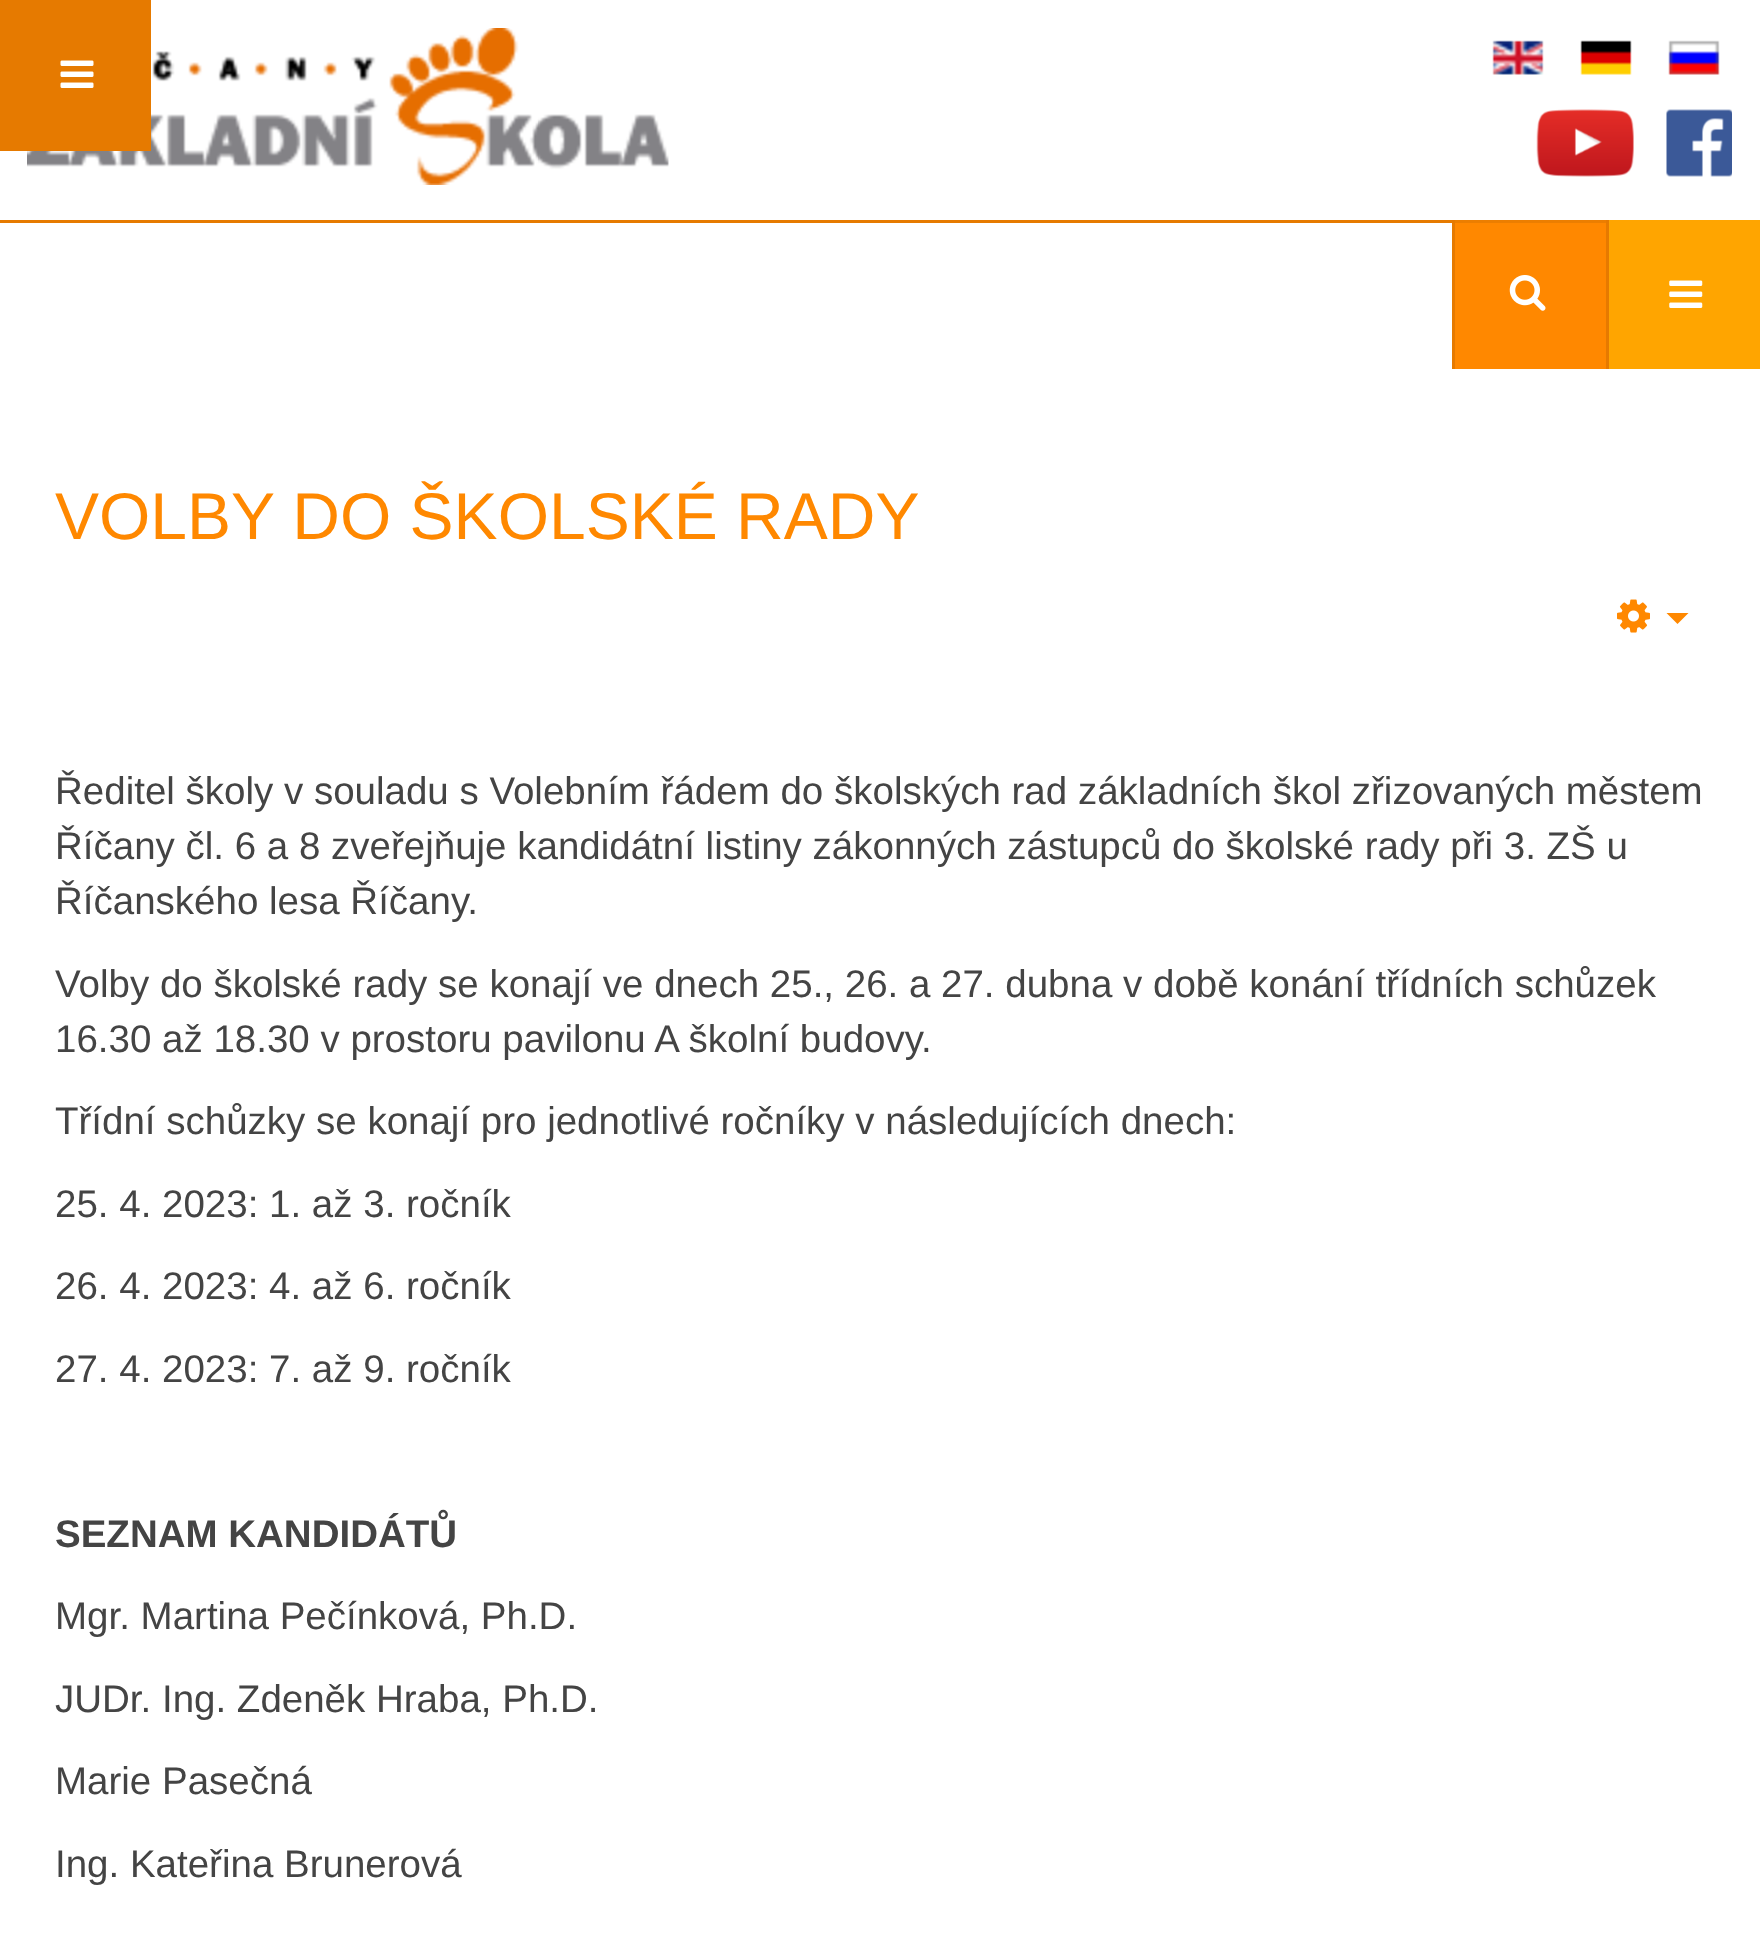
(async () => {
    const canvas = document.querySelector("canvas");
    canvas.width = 1760;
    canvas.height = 1950;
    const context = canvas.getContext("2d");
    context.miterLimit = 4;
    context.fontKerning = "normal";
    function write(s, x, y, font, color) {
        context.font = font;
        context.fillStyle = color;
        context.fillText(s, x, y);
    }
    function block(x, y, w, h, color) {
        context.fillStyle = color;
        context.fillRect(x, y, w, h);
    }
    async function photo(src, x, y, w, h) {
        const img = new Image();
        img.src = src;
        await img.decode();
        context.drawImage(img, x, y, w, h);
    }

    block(0, 0, 1760, 1950, "rgb(255, 255, 255)");
    block(0, 220, 1452, 3, "rgb(230, 122, 0)");
    await photo("media/2.png", 27, 28, 642, 157);
    block(0, 0, 151, 151, "rgb(230, 122, 0)");
    await photo("media/1.png", 60, 60, 34, 28);
    await photo("media/3.png", 1492, 40, 52, 35);
    await photo("media/4.png", 1580, 40, 52, 35);
    await photo("media/5.png", 1668, 40, 52, 35);
    await photo("media/6.png", 1536, 109, 98, 68);
    await photo("media/7.png", 1666, 109, 66, 68);
    block(1455, 223, 151, 146, "rgb(255, 136, 0)");
    block(1606, 220, 3, 149, "rgb(230, 122, 0)");
    block(1452, 220, 3, 149, "rgb(230, 122, 0)");
    block(1455, 220, 151, 3, "rgb(236, 126, 0)");
    await photo("media/8.png", 1509, 275, 37, 36);
    block(1609, 220, 151, 149, "rgb(255, 165, 0)");
    await photo("media/9.png", 1669, 280, 34, 28);
    write("VOLBY DO ŠKOLSKÉ RADY", 55, 539, "66px Liberation Sans", "rgb(255, 136, 0)");
    await photo("media/10.png", 1617, 599, 33, 34);
    context.beginPath();
    context.moveTo(1666.5, 613);
    context.lineTo(1688.5, 613);
    context.lineTo(1677.5, 624);
    context.closePath();
    context.fill();
    write("Ředitel školy v souladu s Volebním řádem do školských rad základních škol zřizovaných městem", 55, 804, "38.5px Liberation Sans", "rgb(68, 68, 68)");
    write("Říčany čl. 6 a 8 zveřejňuje kandidátní listiny zákonných zástupců do školské rady při 3. ZŠ u", 55, 859, "38.5px Liberation Sans", "rgb(68, 68, 68)");
    write("Říčanského lesa Říčany.", 55, 914, "38.5px Liberation Sans", "rgb(68, 68, 68)");
    write("Volby do školské rady se konají ve dnech 25., 26. a 27. dubna v době konání třídních schůzek", 55, 997, "38.5px Liberation Sans", "rgb(68, 68, 68)");
    write("16.30 až 18.30 v prostoru pavilonu A školní budovy.", 55, 1052, "38.5px Liberation Sans", "rgb(68, 68, 68)");
    write("Třídní schůzky se konají pro jednotlivé ročníky v následujících dnech:", 55, 1134, "38.5px Liberation Sans", "rgb(68, 68, 68)");
    write("25. 4. 2023: 1. až 3. ročník", 55, 1217, "38.5px Liberation Sans", "rgb(68, 68, 68)");
    write("26. 4. 2023: 4. až 6. ročník", 55, 1299, "38.5px Liberation Sans", "rgb(68, 68, 68)");
    write("27. 4. 2023: 7. až 9. ročník", 55, 1382, "38.5px Liberation Sans", "rgb(68, 68, 68)");
    write("SEZNAM KANDIDÁTŮ", 55, 1547, "bold 38.5px Liberation Sans", "rgb(68, 68, 68)");
    write("Mgr. Martina Pečínková, Ph.D.", 55, 1629, "38.5px Liberation Sans", "rgb(68, 68, 68)");
    write("JUDr. Ing. Zdeněk Hraba, Ph.D.", 55, 1712, "38.5px Liberation Sans", "rgb(68, 68, 68)");
    write("Marie Pasečná", 55, 1794, "38.5px Liberation Sans", "rgb(68, 68, 68)");
    write("Ing. Kateřina Brunerová", 55, 1877, "38.5px Liberation Sans", "rgb(68, 68, 68)");
})();
